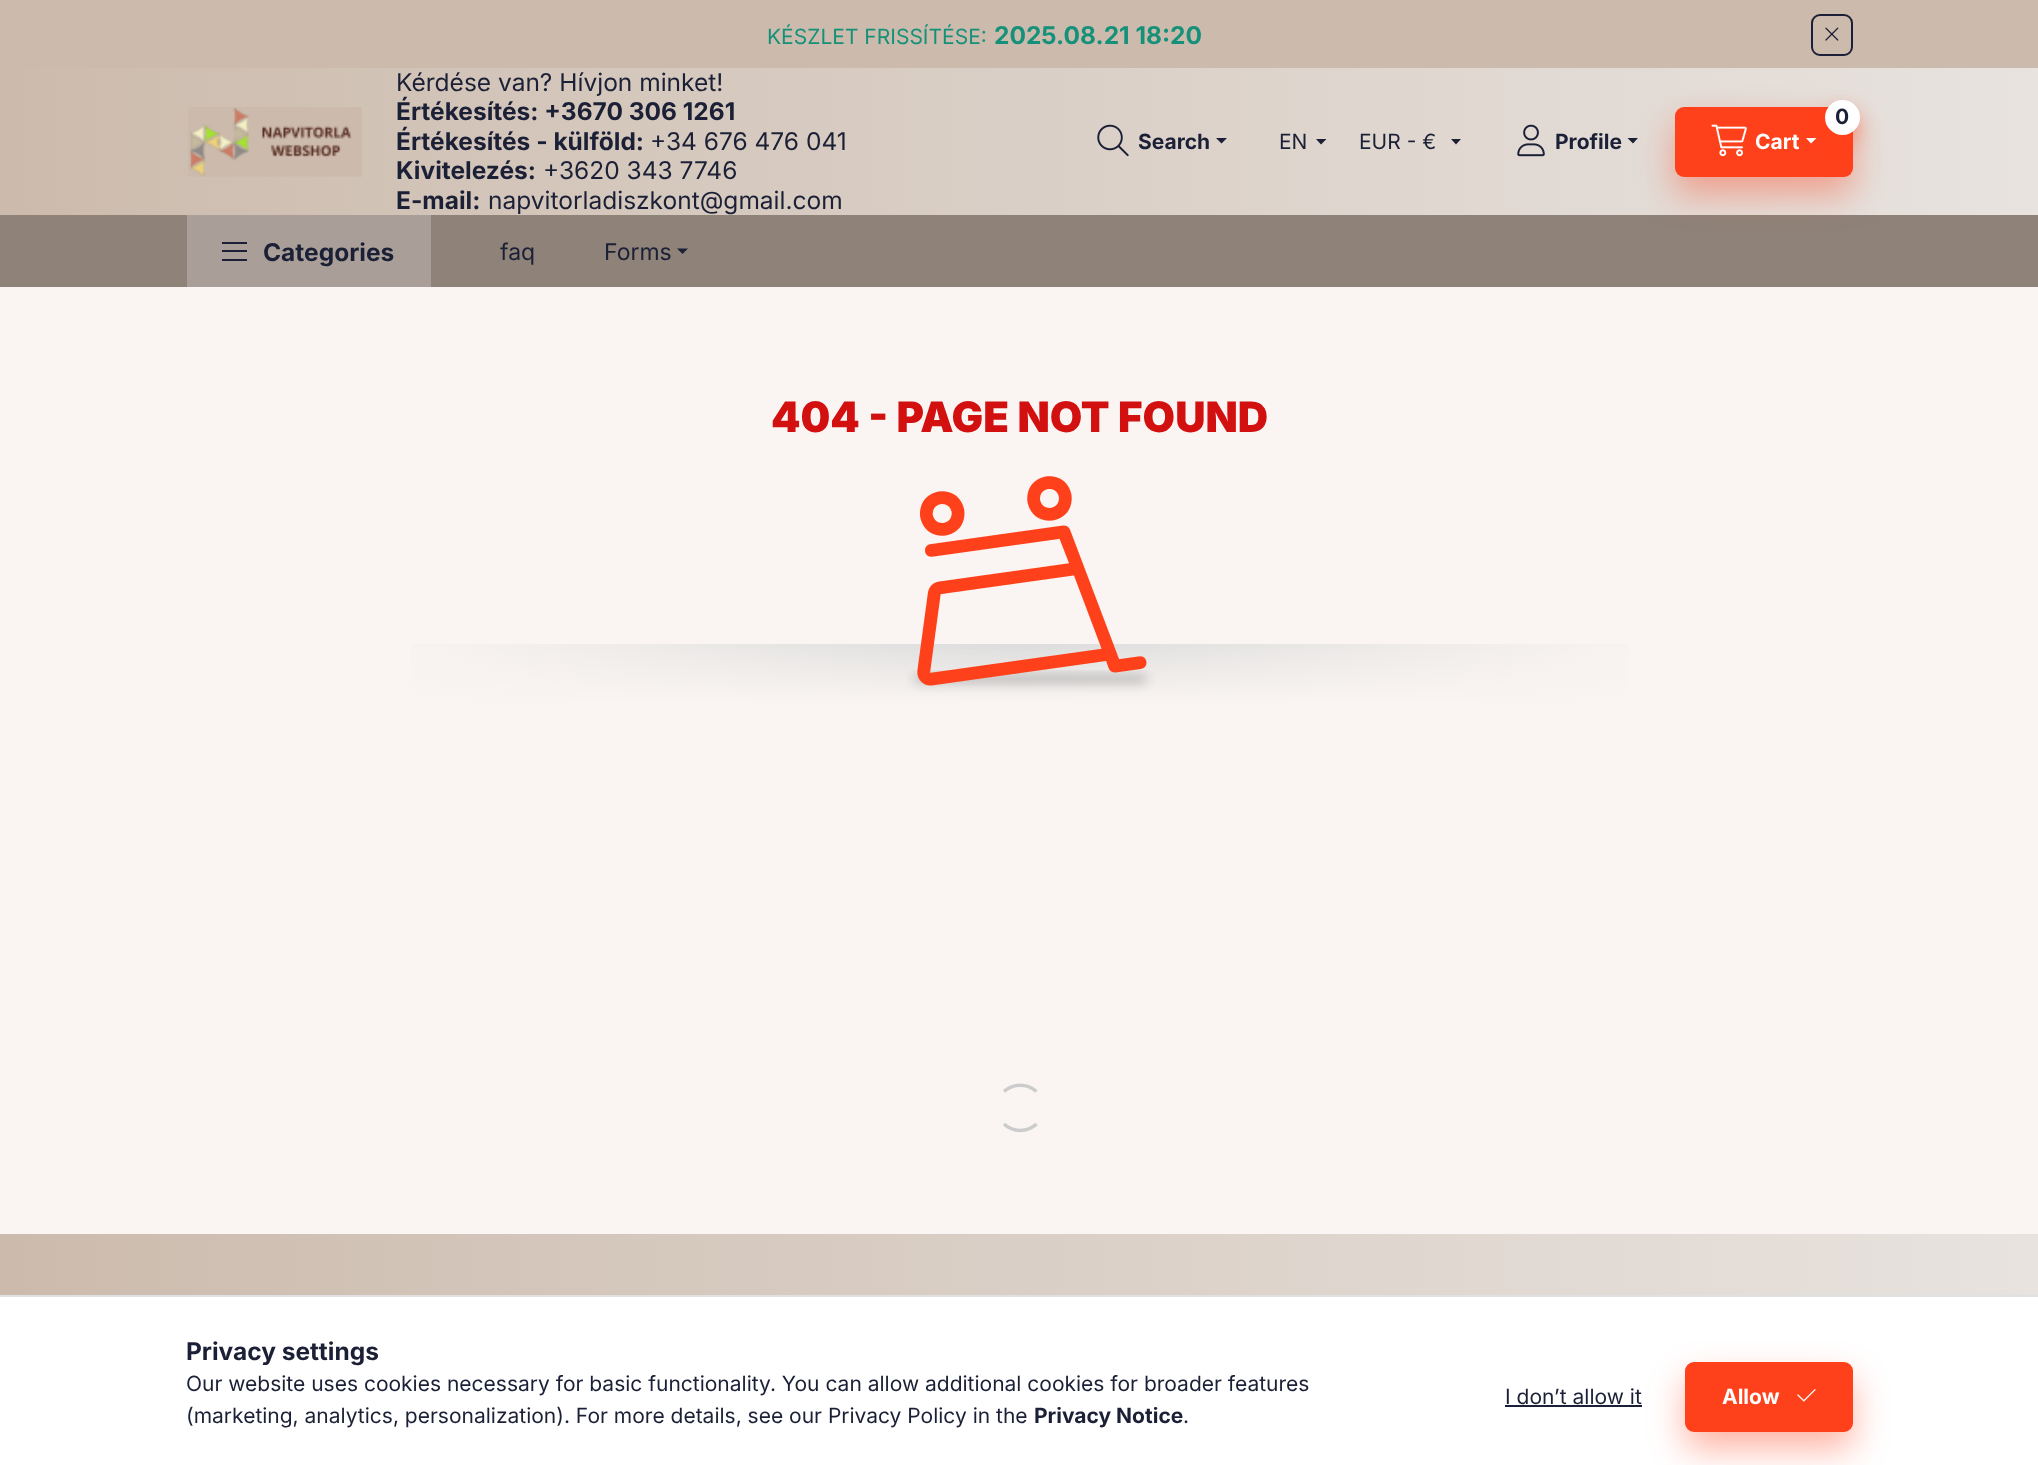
(async () => {
    const canvas = document.querySelector("canvas");
    canvas.width = 2038;
    canvas.height = 1465;
    const context = canvas.getContext("2d");
    context.miterLimit = 4;
    context.fontKerning = "normal";
    function write(s, x, y, font, color) {
        context.font = font;
        context.fillStyle = color;
        context.fillText(s, x, y);
    }
    function block(x, y, w, h, color) {
        context.fillStyle = color;
        context.fillRect(x, y, w, h);
    }
    function card(x, y, w, h, r, color) {
        context.fillStyle = color;
        context.beginPath();
        context.roundRect(x, y, w, h, r);
        context.fill();
    }
    async function photo(src, x, y, w, h) {
        const img = new Image();
        img.src = src;
        await img.decode();
        context.drawImage(img, x, y, w, h);
    }
    let gradient;

    block(0, 0, 2038, 1465, "rgb(250, 245, 242)");
    block(0, 0, 2038, 68, "rgb(204, 187, 173)");
    write("KÉSZLET FRISSÍTÉSE:", 767, 44, "21px Inter", "rgb(22, 145, 121)");
    write("2025.08.21 18:20", 994, 44, "bold 24.5px Inter", "rgb(22, 145, 121)");
    context.beginPath();
    context.roundRect(1812, 15, 40, 40, 8);
    context.strokeStyle = "rgb(27, 32, 54)";
    context.lineWidth = 2;
    context.stroke();
    await photo("media/1.png", 1825, 27, 14, 14);
    gradient = context.createLinearGradient(0, 733, 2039, 733);
    gradient.addColorStop(0, "rgb(204, 187, 173)");
    gradient.addColorStop(1, "rgb(232, 227, 223)");
    context.fillStyle = gradient;
    context.fillRect(0, 68, 2038, 147);
    await photo("media/2.png", 188, 107, 174, 70);
    write("Kérdése van? Hívjon minket!", 396, 91, "24.5px Inter", "rgb(27, 32, 54)");
    write("Értékesítés: +3670 306 1261", 396, 120, "bold 24.5px Inter", "rgb(27, 32, 54)");
    write("Értékesítés - külföld:", 396, 150, "bold 24.5px Inter", "rgb(27, 32, 54)");
    write("+34 676 476 041", 650, 150, "24.5px Inter", "rgb(27, 32, 54)");
    write("Kivitelezés:", 396, 179, "bold 24.5px Inter", "rgb(27, 32, 54)");
    write("+3620 343 7746", 543, 179, "24.5px Inter", "rgb(27, 32, 54)");
    write("E-mail:", 396, 209, "bold 24.5px Inter", "rgb(27, 32, 54)");
    write("napvitorladiszkont@gmail.com", 488, 209, "24.5px Inter", "rgb(27, 32, 54)");
    await photo("media/3.png", 1097, 124, 32, 33);
    write("Search", 1138, 149, "bold 21px Inter", "rgb(27, 32, 54)");
    context.beginPath();
    context.moveTo(1216, 138);
    context.lineTo(1227, 138);
    context.lineTo(1221.5, 143.5);
    context.closePath();
    context.fill();
    write("EN", 1279, 149, "21px Inter", "rgb(27, 32, 54)");
    context.beginPath();
    context.moveTo(1316, 139);
    context.lineTo(1326.5, 139);
    context.lineTo(1321, 144.5);
    context.closePath();
    context.fill();
    write("EUR - €", 1359, 149, "21px Inter", "rgb(27, 32, 54)");
    context.beginPath();
    context.moveTo(1451, 139);
    context.lineTo(1461, 139);
    context.lineTo(1456, 144.5);
    context.closePath();
    context.fill();
    await photo("media/4.png", 1517, 124, 28, 33);
    block(0, 215, 2038, 72, "rgb(142, 130, 121)");
    context.fillStyle = "rgba(255, 65, 27, 0.4)";
    context.filter = "blur(17.5px)";
    context.beginPath();
    context.roundRect(1675, 124, 178, 70, 9);
    context.fill();
    context.filter = "none";
    write("Profile", 1555, 149, "bold 21px Inter", "rgb(27, 32, 54)");
    context.beginPath();
    context.moveTo(1627.5, 138);
    context.lineTo(1638, 138);
    context.lineTo(1633, 143.5);
    context.closePath();
    context.fill();
    card(1675, 107, 178, 70, 9, "rgb(255, 65, 27)");
    context.fillStyle = "rgba(255, 65, 27, 0.4)";
    context.filter = "blur(9px)";
    context.beginPath();
    context.roundRect(1825, 109, 35, 35, 17.5);
    context.fill();
    context.filter = "none";
    context.fillStyle = "rgb(255, 255, 255)";
    context.beginPath();
    context.arc(1842.5, 117.5, 17.5, 0, Math.PI * 2);
    context.fill();
    write("0", 1835, 124, "bold 21px Inter", "rgb(27, 32, 54)");
    await photo("media/5.png", 1711, 124, 36, 33);
    write("Cart", 1755, 149, "bold 21px Inter", "rgb(255, 255, 255)");
    context.beginPath();
    context.moveTo(1806, 138);
    context.lineTo(1816.5, 138);
    context.lineTo(1811, 143.5);
    context.closePath();
    context.fill();
    block(187, 215, 244, 72, "rgb(169, 159, 152)");
    block(222, 242, 25, 2, "rgb(27, 32, 54)");
    block(222, 250, 25, 2, "rgb(27, 32, 54)");
    block(222, 259, 25, 2, "rgb(27, 32, 54)");
    write("Categories", 263, 261, "bold 24.5px Inter", "rgb(27, 32, 54)");
    write("faq", 500, 260, "23px Inter", "rgb(27, 32, 54)");
    write("Forms", 604, 260, "23px Inter", "rgb(27, 32, 54)");
    context.beginPath();
    context.moveTo(677, 248.5);
    context.lineTo(688, 248.5);
    context.lineTo(682.5, 254);
    context.closePath();
    context.fill();
    write("404 - PAGE NOT FOUND", 771, 432, "900 42px Inter", "rgb(211, 16, 16)");
    gradient = context.createLinearGradient(187, 675, 1853, 675);
    gradient.addColorStop(0.1, "rgb(250, 245, 242)");
    gradient.addColorStop(0.5, "rgb(221, 221, 221)");
    gradient.addColorStop(0.9, "rgb(250, 245, 242)");
    context.fillStyle = gradient;
    context.fillRect(411, 644, 1218, 61);
    gradient = context.createLinearGradient(1020, 705, 1020, 644);
    gradient.addColorStop(0, "rgb(250, 245, 242)");
    gradient.addColorStop(1, "rgba(250, 245, 242, 0)");
    context.fillStyle = gradient;
    context.fillRect(411, 649, 1218, 56);
    context.save();
    context.beginPath();
    context.rect(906, 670, 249, 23);
    context.clip();
    context.fillStyle = "rgb(128, 128, 128)";
    context.filter = "blur(6px)";
    context.beginPath();
    context.rect(915, 677, 231, 4);
    context.fill();
    context.filter = "none";
    context.restore();
    await photo("media/6.png", 917, 476, 230, 210);
    context.beginPath();
    context.moveTo(1004, 1091.5);
    context.bezierCurveTo(1013, 1083, 1027.5, 1083, 1036.5, 1091.5);
    context.moveTo(1036.5, 1124);
    context.bezierCurveTo(1027.5, 1132.5, 1013, 1132.5, 1004, 1124);
    context.strokeStyle = "rgb(204, 204, 204)";
    context.lineWidth = 3.5;
    context.stroke();
    gradient = context.createLinearGradient(0, 733, 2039, 733);
    gradient.addColorStop(0, "rgb(204, 187, 173)");
    gradient.addColorStop(1, "rgb(232, 227, 223)");
    context.fillStyle = gradient;
    context.fillRect(0, 1234, 2038, 61);
    block(0, 1297, 2038, 168, "rgb(255, 255, 255)");
    block(0, 1295, 2038, 2, "rgb(225, 225, 225)");
    write("Privacy settings", 186, 1360, "bold 24.5px Inter", "rgb(27, 32, 54)");
    write("Our website uses cookies necessary for basic functionality. You can allow additional cookies for broader features", 186, 1391, "21px Inter", "rgb(27, 32, 54)");
    write("(marketing, analytics, personalization). For more details, see our Privacy Policy in the", 186, 1423, "21px Inter", "rgb(27, 32, 54)");
    write("Privacy Notice", 1034, 1423, "bold 21px Inter", "rgb(27, 32, 54)");
    write(".", 1183, 1423, "21px Inter", "rgb(27, 32, 54)");
    write("I don’t allow it", 1505, 1404, "21px Inter", "rgb(27, 32, 54)");
    block(1505, 1405, 137, 2, "rgb(27, 32, 54)");
    context.fillStyle = "rgba(255, 65, 27, 0.4)";
    context.filter = "blur(17.5px)";
    context.beginPath();
    context.roundRect(1685, 1379, 168, 70, 9);
    context.fill();
    context.filter = "none";
    context.fillStyle = "rgb(255, 65, 27)";
    context.beginPath();
    context.roundRect(1686, 1363, 166, 68, 8);
    context.fill();
    context.strokeStyle = "rgb(255, 65, 27)";
    context.lineWidth = 2;
    context.stroke();
    write("Allow", 1722, 1404, "bold 21px Inter", "rgb(255, 255, 255)");
    await photo("media/7.png", 1797, 1389, 19, 13);
})();
